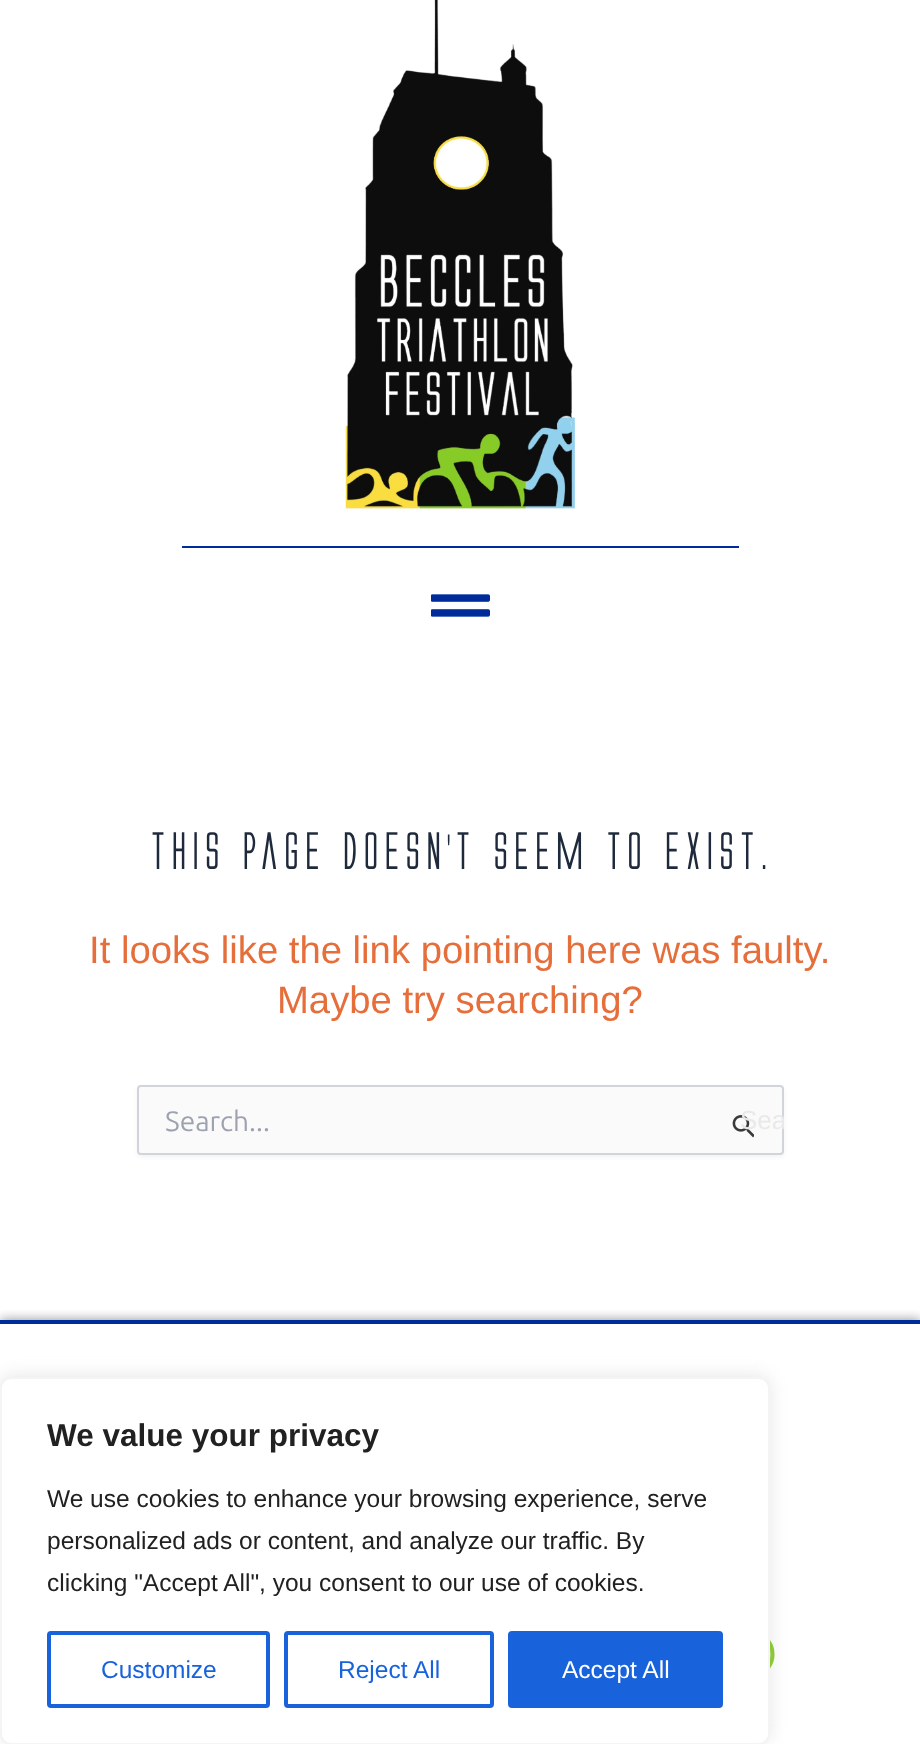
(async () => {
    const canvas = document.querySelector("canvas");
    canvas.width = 920;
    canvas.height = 1744;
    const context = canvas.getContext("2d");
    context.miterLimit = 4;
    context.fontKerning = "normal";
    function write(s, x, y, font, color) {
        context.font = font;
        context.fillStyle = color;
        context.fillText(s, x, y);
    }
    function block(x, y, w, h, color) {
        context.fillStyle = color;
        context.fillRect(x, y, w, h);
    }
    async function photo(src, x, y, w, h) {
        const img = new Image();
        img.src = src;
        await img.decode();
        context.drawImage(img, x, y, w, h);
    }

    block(0, 0, 920, 1744, "rgb(255, 255, 255)");
    await photo("media/1.png", 345, 0, 231, 509);
    block(182, 546, 557, 2, "rgb(0, 43, 155)");
    await photo("media/2.png", 431, 594, 59, 23);
    write("This page doesn't seem to exist.", 149, 869, "bold 49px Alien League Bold", "rgb(30, 41, 59)");
    write("It looks like the link pointing here was faulty.", 89, 963, "38.25px Liberation Sans", "rgb(230, 110, 59)");
    write("Maybe try searching?", 277, 1013, "38.25px Liberation Sans", "rgb(230, 110, 59)");
    context.fillStyle = "rgba(0, 0, 0, 0.05)";
    context.filter = "blur(2px)";
    context.beginPath();
    context.roundRect(137, 1087, 647, 70, 4);
    context.fill();
    context.filter = "none";
    context.fillStyle = "rgb(250, 250, 250)";
    context.beginPath();
    context.roundRect(138, 1086, 645, 68, 3);
    context.fill();
    context.strokeStyle = "rgb(209, 213, 219)";
    context.lineWidth = 2;
    context.stroke();
    write("Search...", 165, 1131, "28px Ubuntu", "rgb(156, 163, 175)");
    await photo("media/3.png", 732, 1115, 22, 23);
    context.save();
    context.beginPath();
    context.roundRect(705, 1085, 79, 72, 4);
    context.clip();
    write("Sea", 740, 1129, "26px Liberation Sans", "rgb(233, 233, 233)");
    context.restore();
    context.save();
    context.beginPath();
    context.rect(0, 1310, 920, 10);
    context.clip();
    context.fillStyle = "rgba(0, 0, 0, 0.45)";
    context.filter = "blur(6px)";
    context.beginPath();
    context.rect(0, 1320, 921, 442);
    context.fill();
    context.filter = "none";
    context.restore();
    block(0, 1320, 920, 4, "rgb(0, 43, 155)");
    context.letterSpacing = "2px";
    write(")", 766, 1662, "bold 30px Liberation Sans", "rgb(135, 203, 40)");
    context.fillStyle = "rgba(172, 171, 171, 0.3)";
    context.filter = "blur(9px)";
    context.beginPath();
    context.roundRect(0, 1376, 770, 367, 11);
    context.fill();
    context.filter = "none";
    context.fillStyle = "rgb(255, 255, 255)";
    context.beginPath();
    context.roundRect(1, 1378, 768, 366, 10);
    context.fill();
    context.strokeStyle = "rgb(244, 244, 244)";
    context.stroke();
    context.letterSpacing = "0px";
    write("We value your privacy", 47, 1446, "bold 31.5px Liberation Sans", "rgb(33, 33, 33)");
    write("We use cookies to enhance your browsing experience, serve", 47, 1507, "24.5px Liberation Sans", "rgb(33, 33, 33)");
    write("personalized ads or content, and analyze our traffic. By", 47, 1549, "24.5px Liberation Sans", "rgb(33, 33, 33)");
    write("clicking \"Accept All\", you consent to our use of cookies.", 47, 1591, "24.5px Liberation Sans", "rgb(33, 33, 33)");
    context.beginPath();
    context.roundRect(49, 1633, 219, 73, 2);
    context.strokeStyle = "rgb(24, 99, 220)";
    context.lineWidth = 4;
    context.stroke();
    write("Customize", 101, 1678, "24.5px Liberation Sans", "rgb(24, 99, 220)");
    context.beginPath();
    context.roundRect(286, 1633, 206, 73, 2);
    context.stroke();
    write("Reject All", 338, 1678, "24.5px Liberation Sans", "rgb(24, 99, 220)");
    context.beginPath();
    context.roundRect(510, 1633, 211, 73, 2);
    context.fill();
    context.stroke();
    write("Accept All", 562, 1678, "24.5px Liberation Sans", "rgb(255, 255, 255)");
})();
